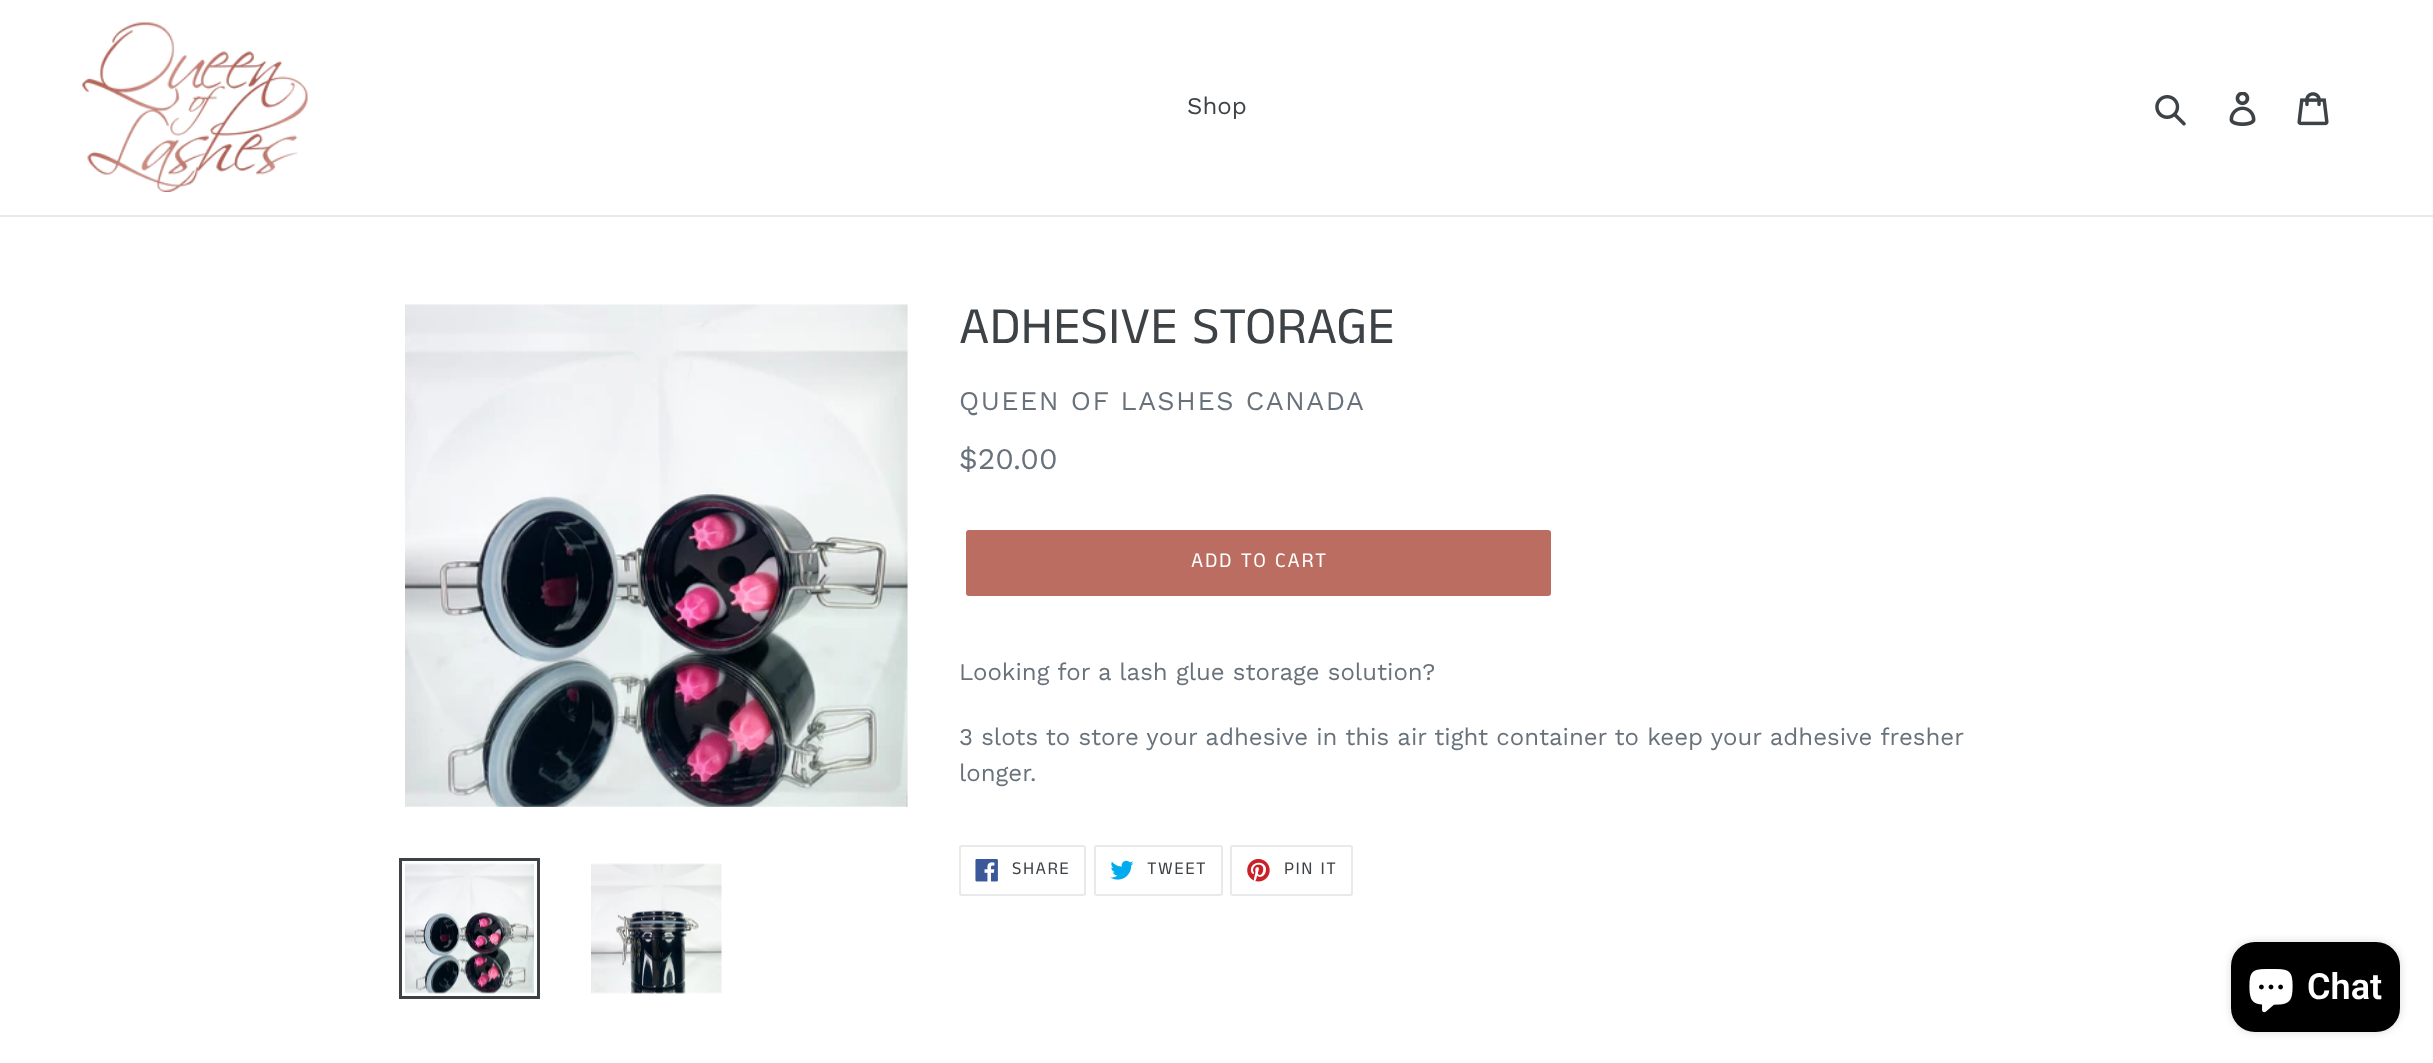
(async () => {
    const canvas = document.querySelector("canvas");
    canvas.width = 2433;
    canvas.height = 1063;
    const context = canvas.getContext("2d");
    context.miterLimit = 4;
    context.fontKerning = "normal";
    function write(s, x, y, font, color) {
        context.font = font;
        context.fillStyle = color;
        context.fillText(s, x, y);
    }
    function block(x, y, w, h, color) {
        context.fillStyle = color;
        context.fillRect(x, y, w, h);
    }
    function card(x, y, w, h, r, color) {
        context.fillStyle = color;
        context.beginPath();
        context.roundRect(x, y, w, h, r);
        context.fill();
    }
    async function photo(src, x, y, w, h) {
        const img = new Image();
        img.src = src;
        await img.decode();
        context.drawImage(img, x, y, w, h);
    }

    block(0, 0, 2433, 1063, "rgb(255, 255, 255)");
    block(0, 215, 2433, 2, "rgb(232, 233, 235)");
    await photo("media/1.png", 82, 22, 226, 170);
    write("Shop", 1187, 114, "24px Work Sans", "rgb(61, 66, 70)");
    await photo("media/2.png", 2155, 95, 31, 31);
    await photo("media/3.png", 2229, 92, 27, 34);
    await photo("media/4.png", 2297, 92, 32, 34);
    await photo("media/5.png", 405, 304, 503, 503);
    context.strokeStyle = "rgb(61, 66, 70)";
    context.lineWidth = 3;
    context.strokeRect(400.5, 859.5, 138, 138);
    await photo("media/6.png", 405, 863, 129, 131);
    await photo("media/7.png", 591, 863, 131, 131);
    write("ADHESIVE STORAGE", 959, 343, "52.5px Anek Tamil", "rgb(61, 66, 70)");
    context.letterSpacing = "1.5px";
    write("QUEEN OF LASHES CANADA", 959, 410, "27px Work Sans", "rgb(105, 114, 123)");
    context.letterSpacing = "0px";
    write("$20.00", 959, 469, "30px Work Sans", "rgb(105, 114, 123)");
    card(966, 530, 585, 66, 3, "rgb(187, 109, 97)");
    context.letterSpacing = "1.75px";
    write("ADD TO CART", 1191, 567, "21px Anek Tamil", "rgb(255, 255, 255)");
    context.letterSpacing = "0px";
    write("Looking for a lash glue storage solution?", 959, 680, "24px Work Sans", "rgb(105, 114, 123)");
    write("3 slots to store your adhesive in this air tight container to keep your adhesive fresher", 959, 745, "24px Work Sans", "rgb(105, 114, 123)");
    write("longer.", 959, 781, "24px Work Sans", "rgb(105, 114, 123)");
    context.beginPath();
    context.roundRect(960, 846, 125, 49, 2);
    context.strokeStyle = "rgb(232, 233, 235)";
    context.lineWidth = 2;
    context.stroke();
    await photo("media/8.png", 975, 859, 23, 23);
    context.letterSpacing = "1.5px";
    write("SHARE", 1012, 874, "18px Anek Tamil", "rgb(61, 66, 70)");
    context.beginPath();
    context.roundRect(1095, 846, 127, 49, 2);
    context.stroke();
    await photo("media/9.png", 1110, 860, 24, 20);
    write("TWEET", 1147, 874, "18px Anek Tamil", "rgb(61, 66, 70)");
    context.beginPath();
    context.roundRect(1231, 846, 121, 49, 2);
    context.stroke();
    await photo("media/10.png", 1247, 859, 23, 23);
    write("PIN IT", 1284, 874, "18px Anek Tamil", "rgb(61, 66, 70)");
    context.fillStyle = "rgba(0, 0, 0, 0.15)";
    context.filter = "blur(4px)";
    context.beginPath();
    context.roundRect(2231, 942, 169, 90, 24);
    context.fill();
    context.filter = "none";
    card(2231, 942, 169, 90, 24, "rgb(0, 0, 0)");
    await photo("media/11.png", 2249, 969, 44, 44);
    context.letterSpacing = "0px";
    write("Chat", 2307, 999, "600 36px Roboto", "rgb(255, 255, 255)");
})();
